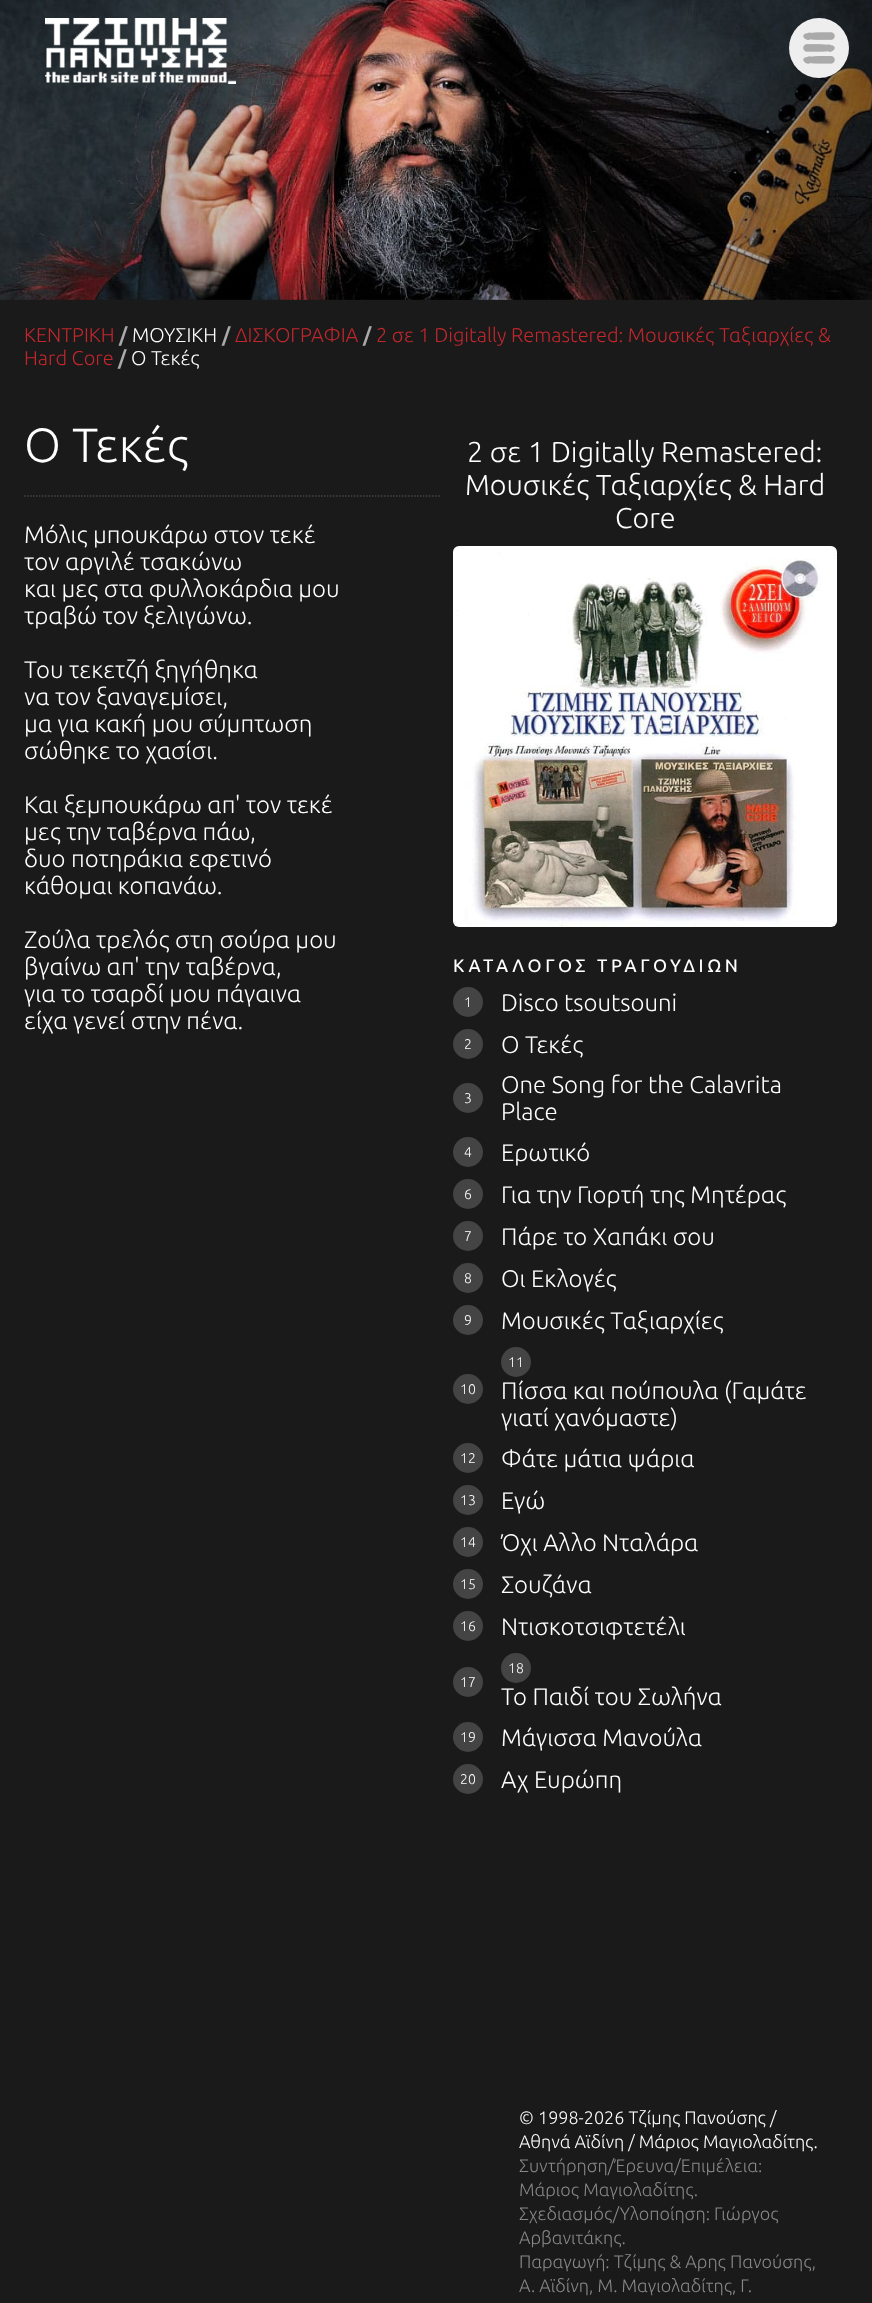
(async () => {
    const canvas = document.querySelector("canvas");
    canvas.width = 872;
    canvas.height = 2303;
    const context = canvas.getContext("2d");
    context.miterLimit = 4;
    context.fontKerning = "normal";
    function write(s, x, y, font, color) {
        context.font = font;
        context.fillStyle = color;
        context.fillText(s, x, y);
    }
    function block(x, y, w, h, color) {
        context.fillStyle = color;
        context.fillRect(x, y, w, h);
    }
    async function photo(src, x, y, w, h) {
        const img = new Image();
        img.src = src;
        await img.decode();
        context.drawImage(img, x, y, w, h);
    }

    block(0, 0, 872, 2303, "rgb(26, 26, 26)");
    await photo("media/1.png", 0, 0, 872, 300);
    await photo("media/2.png", 45, 18, 191, 66);
    context.fillStyle = "rgb(238, 238, 238)";
    context.beginPath();
    context.arc(819, 48, 30, 0, Math.PI * 2);
    context.fill();
    await photo("media/3.png", 803, 32, 32, 32);
    write("ΚΕΝΤΡΙΚΗ", 24, 342, "300 20px Ubuntu", "rgb(193, 39, 45)");
    write("/", 119, 342, "bold 20px Ubuntu", "rgb(170, 170, 170)");
    write("ΜΟΥΣΙΚΗ", 132, 342, "300 20px Ubuntu", "rgb(255, 255, 255)");
    write("/", 222, 342, "bold 20px Ubuntu", "rgb(170, 170, 170)");
    write("ΔΙΣΚΟΓΡΑΦΙΑ", 235, 342, "300 20px Ubuntu", "rgb(193, 39, 45)");
    write("/", 363, 342, "bold 20px Ubuntu", "rgb(170, 170, 170)");
    write("2 σε 1 Digitally Remastered: Μουσικές Ταξιαρχίες &", 376, 342, "300 20px Ubuntu", "rgb(193, 39, 45)");
    write("Hard Core", 24, 365, "300 20px Ubuntu", "rgb(193, 39, 45)");
    write("/", 118, 365, "bold 20px Ubuntu", "rgb(170, 170, 170)");
    write("Ο Τεκές", 131, 365, "300 20px Ubuntu", "rgb(255, 255, 255)");
    context.beginPath();
    context.moveTo(24, 496);
    context.lineTo(441, 496);
    context.strokeStyle = "rgb(68, 68, 68)";
    context.lineWidth = 1.5;
    context.setLineDash([1.5, 1.5]);
    context.stroke();
    write("Ο Τεκές", 24, 462, "300 48px Ubuntu", "rgb(255, 255, 255)");
    write("Μόλις μπουκάρω στον τεκέ", 24, 543, "300 24px Ubuntu", "rgb(255, 255, 255)");
    write("τον αργιλέ τσακώνω", 24, 570, "300 24px Ubuntu", "rgb(255, 255, 255)");
    write("και μες στα φυλλοκάρδια μου", 24, 597, "300 24px Ubuntu", "rgb(255, 255, 255)");
    write("τραβώ τον ξελιγώνω.", 24, 624, "300 24px Ubuntu", "rgb(255, 255, 255)");
    write("Του τεκετζή ξηγήθηκα", 24, 678, "300 24px Ubuntu", "rgb(255, 255, 255)");
    write("να τον ξαναγεμίσει,", 24, 705, "300 24px Ubuntu", "rgb(255, 255, 255)");
    write("μα για κακή μου σύμπτωση", 24, 732, "300 24px Ubuntu", "rgb(255, 255, 255)");
    write("σώθηκε το χασίσι.", 24, 759, "300 24px Ubuntu", "rgb(255, 255, 255)");
    write("Και ξεμπουκάρω απ' τον τεκέ", 24, 813, "300 24px Ubuntu", "rgb(255, 255, 255)");
    write("μες την ταβέρνα πάω,", 24, 840, "300 24px Ubuntu", "rgb(255, 255, 255)");
    write("δυο ποτηράκια εφετινό", 24, 867, "300 24px Ubuntu", "rgb(255, 255, 255)");
    write("κάθομαι κοπανάω.", 24, 894, "300 24px Ubuntu", "rgb(255, 255, 255)");
    write("Ζούλα τρελός στη σούρα μου", 24, 948, "300 24px Ubuntu", "rgb(255, 255, 255)");
    write("βγαίνω απ' την ταβέρνα,", 24, 975, "300 24px Ubuntu", "rgb(255, 255, 255)");
    write("για το τσαρδί μου πάγαινα", 24, 1002, "300 24px Ubuntu", "rgb(255, 255, 255)");
    write("είχα γενεί στην πένα.", 24, 1029, "300 24px Ubuntu", "rgb(255, 255, 255)");
    write("2 σε 1 Digitally Remastered:", 467, 462, "300 28.75px Ubuntu", "rgb(255, 255, 255)");
    write("Μουσικές Ταξιαρχίες & Hard", 465, 495, "300 28.75px Ubuntu", "rgb(255, 255, 255)");
    write("Core", 615, 528, "300 28.75px Ubuntu", "rgb(255, 255, 255)");
    await photo("media/4.png", 453, 546, 384, 381);
    context.letterSpacing = "3.6px";
    write("ΚΑΤΑΛΟΓΟΣ ΤΡΑΓΟΥΔΙΩΝ", 453, 972, "500 18px Ubuntu", "rgb(255, 255, 255)");
    context.fillStyle = "rgb(68, 68, 68)";
    context.beginPath();
    context.arc(468, 1002, 15, 0, Math.PI * 2);
    context.fill();
    context.letterSpacing = "0px";
    write("1", 464, 1007, "300 14px Ubuntu", "rgb(255, 255, 255)");
    write("Disco tsoutsouni", 501, 1011, "300 24px Ubuntu", "rgb(255, 255, 255)");
    context.fillStyle = "rgb(68, 68, 68)";
    context.beginPath();
    context.arc(468, 1044, 15, 0, Math.PI * 2);
    context.fill();
    write("2", 464, 1049, "300 14px Ubuntu", "rgb(255, 255, 255)");
    write("Ο Τεκές", 501, 1053, "300 24px Ubuntu", "rgb(255, 255, 255)");
    context.fillStyle = "rgb(68, 68, 68)";
    context.beginPath();
    context.arc(468, 1098, 15, 0, Math.PI * 2);
    context.fill();
    write("3", 464, 1103, "300 14px Ubuntu", "rgb(255, 255, 255)");
    write("One Song for the Calavrita", 501, 1093, "300 24px Ubuntu", "rgb(255, 255, 255)");
    write("Place", 501, 1120, "300 24px Ubuntu", "rgb(255, 255, 255)");
    context.fillStyle = "rgb(68, 68, 68)";
    context.beginPath();
    context.arc(468, 1152, 15, 0, Math.PI * 2);
    context.fill();
    write("4", 464, 1157, "300 14px Ubuntu", "rgb(255, 255, 255)");
    write("Ερωτικό", 501, 1161, "300 24px Ubuntu", "rgb(255, 255, 255)");
    context.fillStyle = "rgb(68, 68, 68)";
    context.beginPath();
    context.arc(468, 1194, 15, 0, Math.PI * 2);
    context.fill();
    write("6", 464, 1199, "300 14px Ubuntu", "rgb(255, 255, 255)");
    write("Για την Γιορτή της Μητέρας", 501, 1203, "300 24px Ubuntu", "rgb(255, 255, 255)");
    context.fillStyle = "rgb(68, 68, 68)";
    context.beginPath();
    context.arc(468, 1236, 15, 0, Math.PI * 2);
    context.fill();
    write("7", 464, 1241, "300 14px Ubuntu", "rgb(255, 255, 255)");
    write("Πάρε το Χαπάκι σου", 501, 1245, "300 24px Ubuntu", "rgb(255, 255, 255)");
    context.fillStyle = "rgb(68, 68, 68)";
    context.beginPath();
    context.arc(468, 1278, 15, 0, Math.PI * 2);
    context.fill();
    write("8", 464, 1283, "300 14px Ubuntu", "rgb(255, 255, 255)");
    write("Οι Εκλογές", 501, 1287, "300 24px Ubuntu", "rgb(255, 255, 255)");
    context.fillStyle = "rgb(68, 68, 68)";
    context.beginPath();
    context.arc(468, 1320, 15, 0, Math.PI * 2);
    context.fill();
    write("9", 464, 1325, "300 14px Ubuntu", "rgb(255, 255, 255)");
    write("Μουσικές Ταξιαρχίες", 501, 1329, "300 24px Ubuntu", "rgb(255, 255, 255)");
    context.fillStyle = "rgb(68, 68, 68)";
    context.beginPath();
    context.arc(468, 1389, 15, 0, Math.PI * 2);
    context.fill();
    write("10", 460, 1394, "300 14px Ubuntu", "rgb(255, 255, 255)");
    context.fillStyle = "rgb(68, 68, 68)";
    context.beginPath();
    context.arc(516, 1362, 15, 0, Math.PI * 2);
    context.fill();
    write("11", 508, 1367, "300 14px Ubuntu", "rgb(255, 255, 255)");
    write("Πίσσα και πούπουλα (Γαμάτε", 501, 1399, "300 24px Ubuntu", "rgb(255, 255, 255)");
    write("γιατί χανόμαστε)", 501, 1426, "300 24px Ubuntu", "rgb(255, 255, 255)");
    context.fillStyle = "rgb(68, 68, 68)";
    context.beginPath();
    context.arc(468, 1458, 15, 0, Math.PI * 2);
    context.fill();
    write("12", 460, 1463, "300 14px Ubuntu", "rgb(255, 255, 255)");
    write("Φάτε μάτια ψάρια", 501, 1467, "300 24px Ubuntu", "rgb(255, 255, 255)");
    context.fillStyle = "rgb(68, 68, 68)";
    context.beginPath();
    context.arc(468, 1500, 15, 0, Math.PI * 2);
    context.fill();
    write("13", 460, 1505, "300 14px Ubuntu", "rgb(255, 255, 255)");
    write("Εγώ", 501, 1509, "300 24px Ubuntu", "rgb(255, 255, 255)");
    context.fillStyle = "rgb(68, 68, 68)";
    context.beginPath();
    context.arc(468, 1542, 15, 0, Math.PI * 2);
    context.fill();
    write("14", 460, 1547, "300 14px Ubuntu", "rgb(255, 255, 255)");
    write("Όχι Aλλο Νταλάρα", 501, 1551, "300 24px Ubuntu", "rgb(255, 255, 255)");
    context.fillStyle = "rgb(68, 68, 68)";
    context.beginPath();
    context.arc(468, 1584, 15, 0, Math.PI * 2);
    context.fill();
    write("15", 460, 1589, "300 14px Ubuntu", "rgb(255, 255, 255)");
    write("Σουζάνα", 501, 1593, "300 24px Ubuntu", "rgb(255, 255, 255)");
    context.fillStyle = "rgb(68, 68, 68)";
    context.beginPath();
    context.arc(468, 1626, 15, 0, Math.PI * 2);
    context.fill();
    write("16", 460, 1631, "300 14px Ubuntu", "rgb(255, 255, 255)");
    write("Ντισκοτσιφτετέλι", 501, 1635, "300 24px Ubuntu", "rgb(255, 255, 255)");
    context.fillStyle = "rgb(68, 68, 68)";
    context.beginPath();
    context.arc(468, 1682, 15, 0, Math.PI * 2);
    context.fill();
    write("17", 460, 1687, "300 14px Ubuntu", "rgb(255, 255, 255)");
    context.fillStyle = "rgb(68, 68, 68)";
    context.beginPath();
    context.arc(516, 1668, 15, 0, Math.PI * 2);
    context.fill();
    write("18", 508, 1673, "300 14px Ubuntu", "rgb(255, 255, 255)");
    write("Το Παιδί του Σωλήνα", 501, 1705, "300 24px Ubuntu", "rgb(255, 255, 255)");
    context.fillStyle = "rgb(68, 68, 68)";
    context.beginPath();
    context.arc(468, 1737, 15, 0, Math.PI * 2);
    context.fill();
    write("19", 460, 1742, "300 14px Ubuntu", "rgb(255, 255, 255)");
    write("Μάγισσα Μανούλα", 501, 1746, "300 24px Ubuntu", "rgb(255, 255, 255)");
    context.fillStyle = "rgb(68, 68, 68)";
    context.beginPath();
    context.arc(468, 1779, 15, 0, Math.PI * 2);
    context.fill();
    write("20", 460, 1784, "300 14px Ubuntu", "rgb(255, 255, 255)");
    write("Αχ Ευρώπη", 501, 1788, "300 24px Ubuntu", "rgb(255, 255, 255)");
    write("© 1998-2026 Τζίμης Πανούσης /", 519, 2124, "300 18px Ubuntu", "rgb(255, 255, 255)");
    write("Αθηνά Αϊδίνη / Μάριος Μαγιολαδίτης.", 519, 2148, "300 18px Ubuntu", "rgb(255, 255, 255)");
    write("Συντήρηση/Έρευνα/Επιμέλεια:", 519, 2172, "300 18px Ubuntu", "rgb(136, 136, 136)");
    write("Μάριος Μαγιολαδίτης.", 519, 2196, "300 18px Ubuntu", "rgb(136, 136, 136)");
    write("Σχεδιασμός/Υλοποίηση: Γιώργος", 519, 2220, "300 18px Ubuntu", "rgb(136, 136, 136)");
    write("Αρβανιτάκης.", 519, 2244, "300 18px Ubuntu", "rgb(136, 136, 136)");
    write("Παραγωγή: Τζίμης & Αρης Πανούσης,", 519, 2268, "300 18px Ubuntu", "rgb(136, 136, 136)");
    write("Α. Αϊδίνη, Μ. Μαγιολαδίτης, Γ.", 519, 2292, "300 18px Ubuntu", "rgb(136, 136, 136)");
})();
